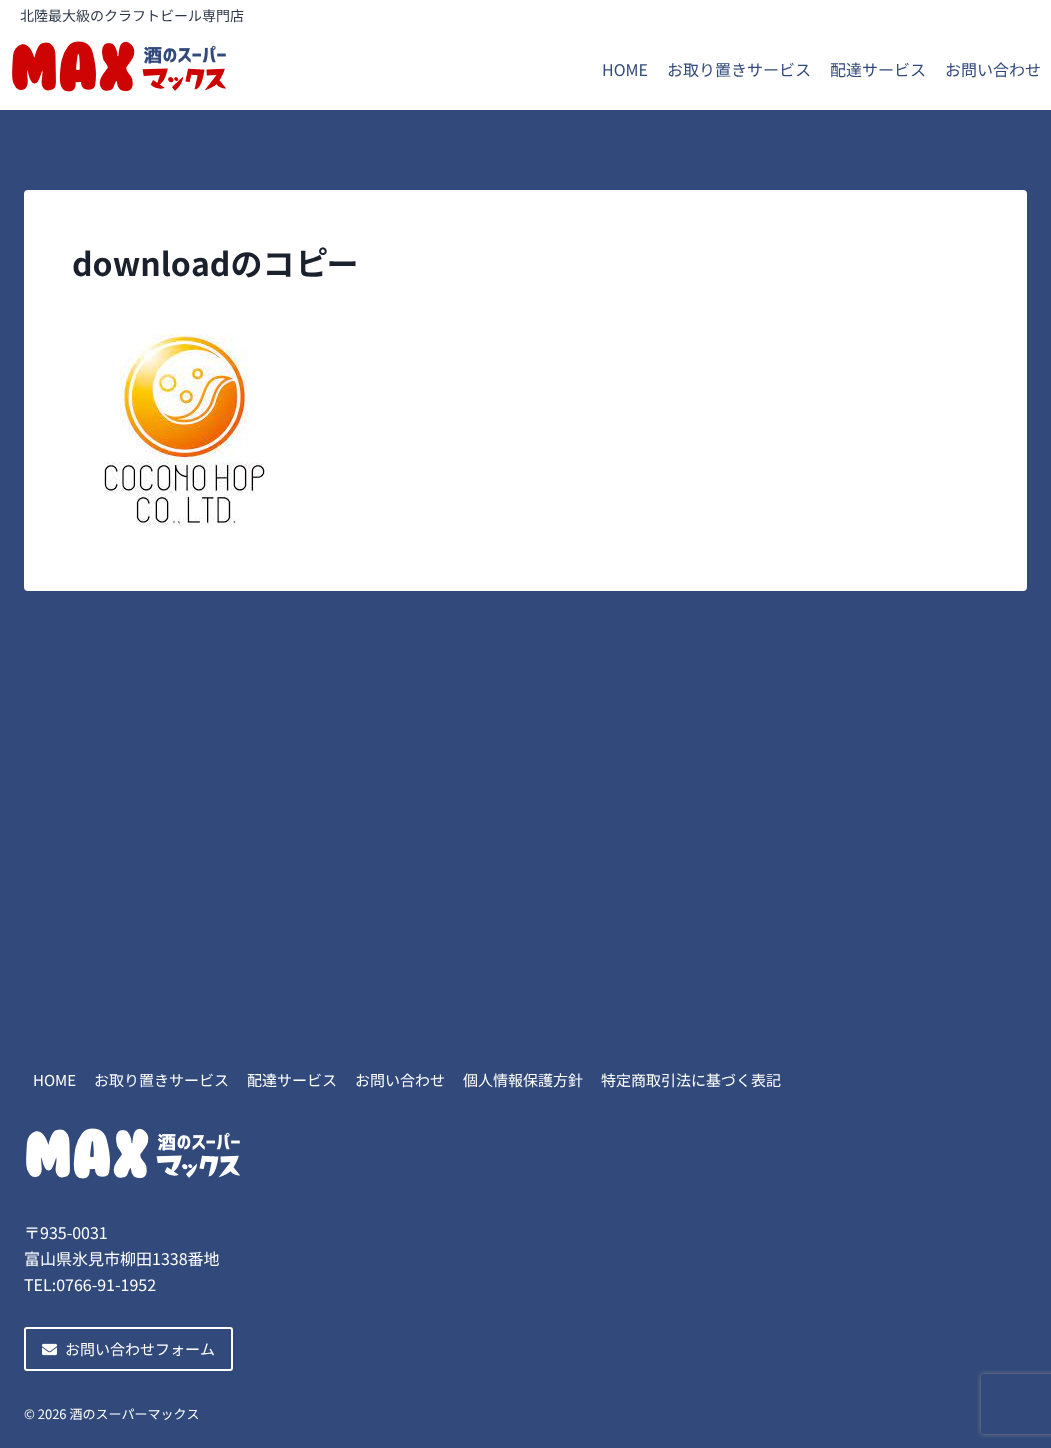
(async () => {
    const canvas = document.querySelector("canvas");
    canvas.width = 1051;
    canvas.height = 1448;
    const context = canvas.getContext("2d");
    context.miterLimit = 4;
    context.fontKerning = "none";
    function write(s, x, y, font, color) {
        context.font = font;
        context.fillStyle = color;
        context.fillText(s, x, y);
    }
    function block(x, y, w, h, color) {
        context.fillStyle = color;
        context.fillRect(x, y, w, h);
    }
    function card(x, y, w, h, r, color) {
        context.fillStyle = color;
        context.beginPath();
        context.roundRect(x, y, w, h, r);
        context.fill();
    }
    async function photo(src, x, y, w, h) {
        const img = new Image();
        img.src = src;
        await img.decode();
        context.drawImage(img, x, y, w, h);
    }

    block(0, 0, 1051, 1448, "rgb(49, 74, 123)");
    block(0, 0, 1051, 110, "rgb(255, 255, 255)");
    write("北陸最大級のクラフトビール専門店", 20, 21, "14px Noto Sans JP", "rgb(45, 55, 72)");
    await photo("media/1.png", 12, 41, 214, 51);
    write("HOME", 602, 76, "16px Noto Sans JP", "rgb(49, 74, 123)");
    write("お取り置きサービス", 667, 76, "16px Noto Sans JP", "rgb(49, 74, 123)");
    write("配達サービス", 830, 76, "16px Noto Sans JP", "rgb(49, 74, 123)");
    write("お問い合わせ", 945, 76, "16px Noto Sans JP", "rgb(49, 74, 123)");
    card(24, 190, 1003, 401, 4, "rgb(255, 255, 255)");
    write("downloadのコピー", 72, 276, "bold 32px Noto Sans JP", "rgb(26, 32, 44)");
    await photo("media/2.png", 104, 333, 168, 193);
    write("HOME", 33, 1086, "15px Noto Sans JP", "rgb(255, 255, 255)");
    write("お取り置きサービス", 94, 1086, "15px Noto Sans JP", "rgb(255, 255, 255)");
    write("配達サービス", 247, 1086, "15px Noto Sans JP", "rgb(255, 255, 255)");
    write("お問い合わせ", 355, 1086, "15px Noto Sans JP", "rgb(255, 255, 255)");
    write("個人情報保護方針", 463, 1086, "15px Noto Sans JP", "rgb(255, 255, 255)");
    write("特定商取引法に基づく表記", 601, 1086, "15px Noto Sans JP", "rgb(255, 255, 255)");
    await photo("media/3.png", 26, 1128, 214, 51);
    write("〒935-0031", 24, 1239, "16px Noto Sans JP", "rgb(255, 255, 255)");
    write("富山県氷見市柳田1338番地", 24, 1265, "16px Noto Sans JP", "rgb(255, 255, 255)");
    write("TEL:0766-91-1952", 24, 1291, "16px Noto Sans JP", "rgb(255, 255, 255)");
    context.beginPath();
    context.roundRect(25, 1328, 207, 42, 2);
    context.strokeStyle = "rgb(255, 255, 255)";
    context.lineWidth = 2;
    context.stroke();
    await photo("media/4.png", 42, 1343, 15, 13);
    write("お問い合わせフォーム", 65, 1355, "15px Noto Sans JP", "rgb(255, 255, 255)");
    write("© 2026 酒のスーパーマックス", 24, 1419, "13px Noto Sans JP", "rgb(255, 255, 255)");
    context.save();
    context.beginPath();
    context.moveTo(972, 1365);
    context.lineTo(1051, 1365);
    context.lineTo(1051, 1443);
    context.lineTo(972, 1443);
    context.closePath();
    context.moveTo(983, 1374);
    context.lineTo(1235, 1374);
    context.bezierCurveTo(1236, 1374, 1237, 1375, 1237, 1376);
    context.lineTo(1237, 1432);
    context.bezierCurveTo(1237, 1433, 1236, 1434, 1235, 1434);
    context.lineTo(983, 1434);
    context.bezierCurveTo(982, 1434, 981, 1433, 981, 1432);
    context.lineTo(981, 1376);
    context.bezierCurveTo(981, 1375, 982, 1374, 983, 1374);
    context.closePath();
    context.clip("evenodd");
    context.fillStyle = "rgb(128, 128, 128)";
    context.filter = "blur(2.5px)";
    context.beginPath();
    context.roundRect(981, 1374, 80, 60, 2);
    context.fill();
    context.filter = "none";
    context.restore();
})();
